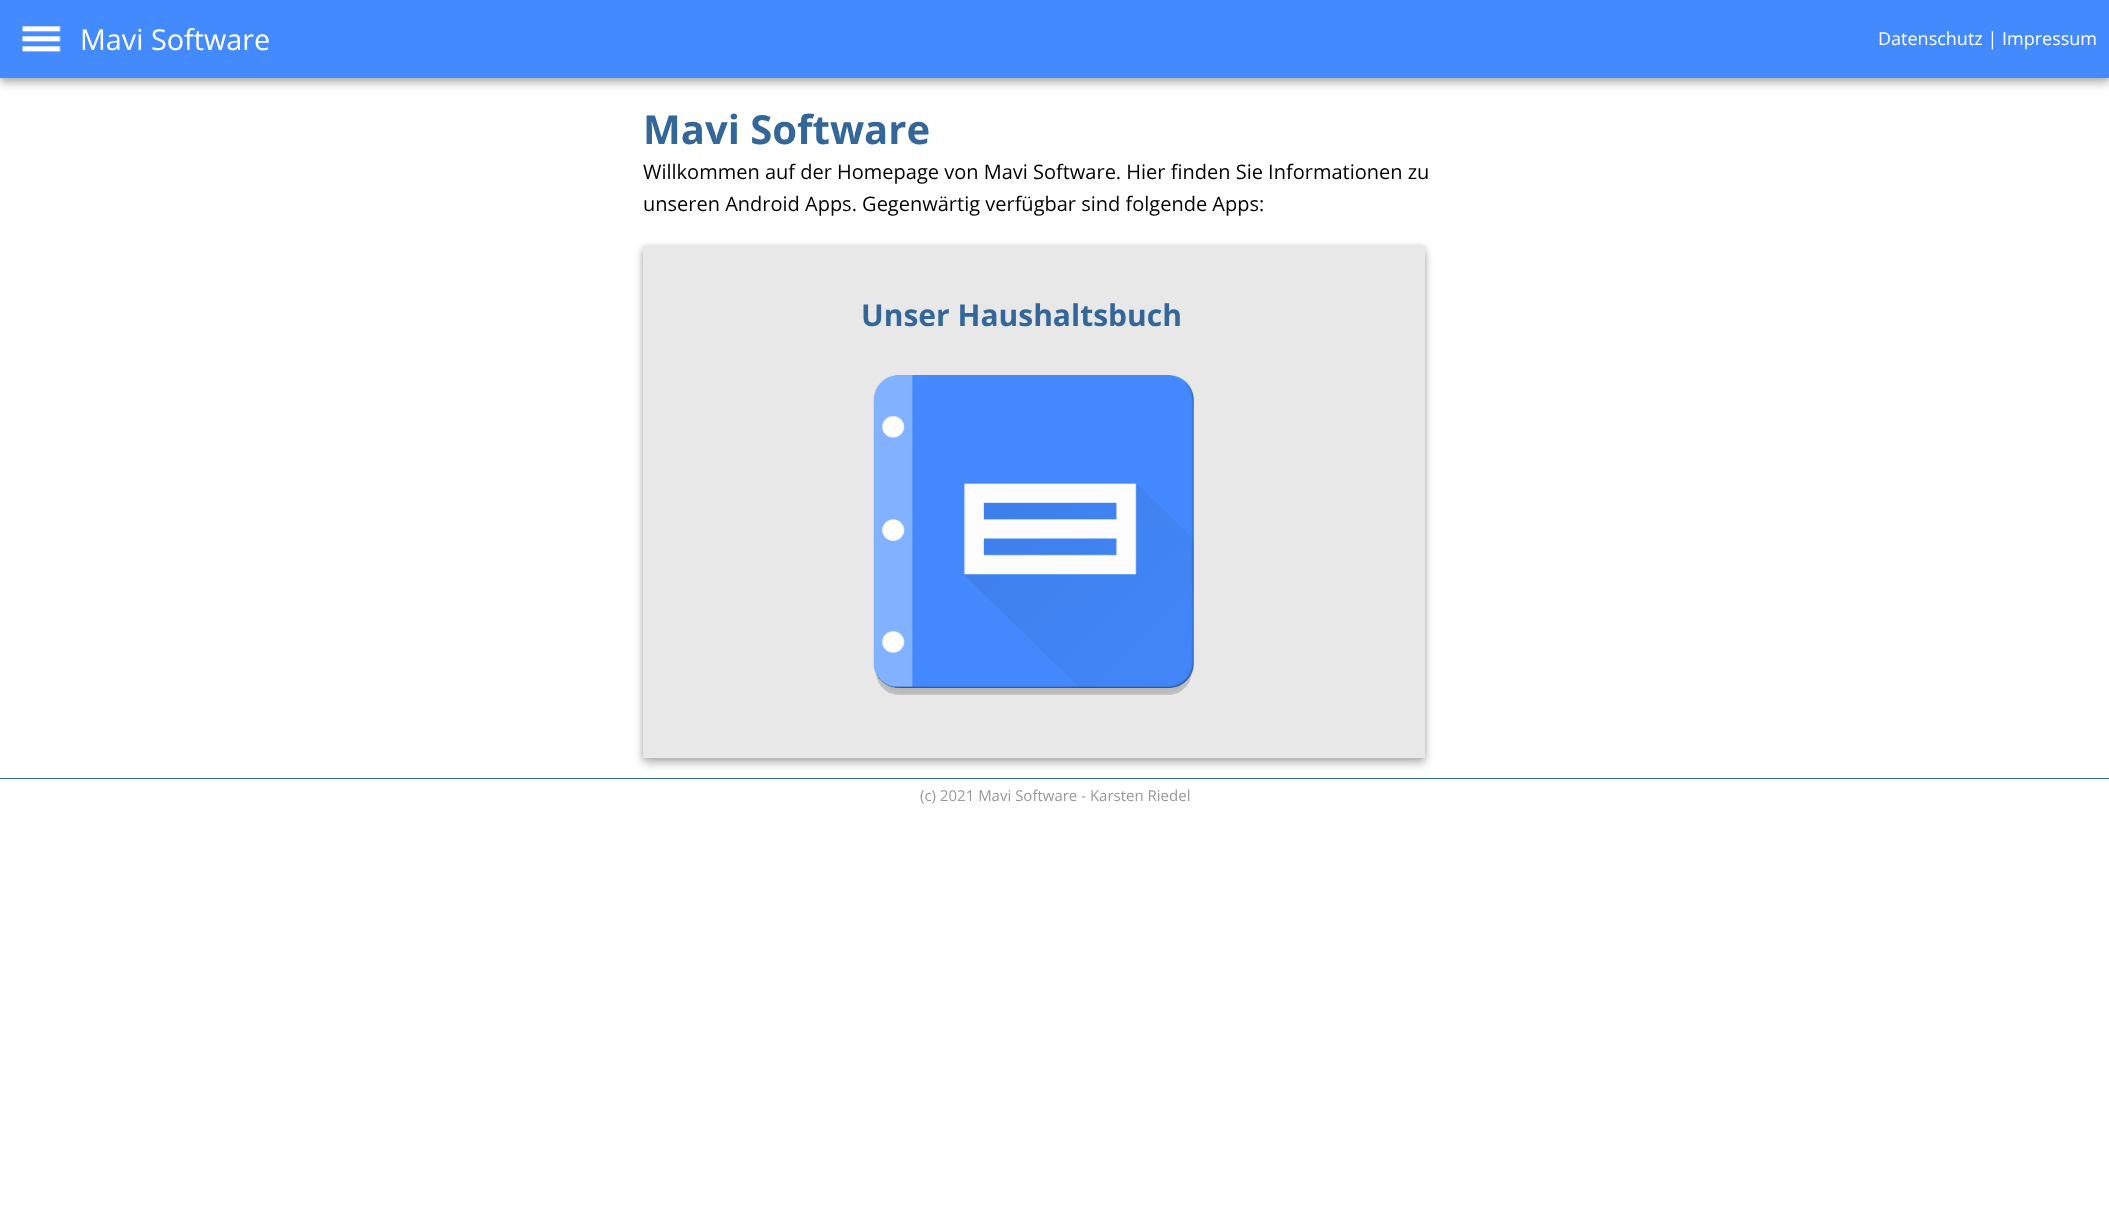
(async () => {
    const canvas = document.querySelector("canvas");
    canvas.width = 2109;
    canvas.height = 1214;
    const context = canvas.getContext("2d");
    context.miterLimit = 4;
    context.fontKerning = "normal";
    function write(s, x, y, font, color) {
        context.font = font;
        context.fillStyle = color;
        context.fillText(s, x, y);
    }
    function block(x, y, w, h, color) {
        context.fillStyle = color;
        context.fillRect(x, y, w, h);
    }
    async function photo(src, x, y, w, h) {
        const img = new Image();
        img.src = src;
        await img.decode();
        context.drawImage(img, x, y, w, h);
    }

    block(0, 0, 2109, 1214, "rgb(255, 255, 255)");
    context.fillStyle = "rgba(0, 0, 0, 0.28)";
    context.filter = "blur(5px)";
    context.beginPath();
    context.rect(0, 5, 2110, 78);
    context.fill();
    context.filter = "none";
    context.fillStyle = "rgba(0, 0, 0, 0.14)";
    context.filter = "blur(2.5px)";
    context.beginPath();
    context.rect(0, 0, 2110, 78);
    context.fill();
    context.filter = "none";
    block(0, 0, 2109, 78, "rgb(68, 138, 255)");
    await photo("media/1.png", 22, 26, 39, 27);
    write("Mavi Software", 80, 50, "28.75px Open Sans", "rgb(255, 255, 255)");
    write("Datenschutz | Impressum", 1878, 45, "18px Open Sans", "rgb(255, 255, 255)");
    write("Mavi Software", 643, 144, "bold 40px Open Sans", "rgb(51, 102, 153)");
    write("Willkommen auf der Homepage von Mavi Software. Hier finden Sie Informationen zu", 643, 179, "20px Open Sans", "rgb(0, 0, 0)");
    write("unseren Android Apps. Gegenwärtig verfügbar sind folgende Apps:", 643, 211, "20px Open Sans", "rgb(0, 0, 0)");
    context.fillStyle = "rgba(0, 0, 0, 0.28)";
    context.filter = "blur(5px)";
    context.beginPath();
    context.rect(643, 251, 782, 512);
    context.fill();
    context.filter = "none";
    context.fillStyle = "rgba(0, 0, 0, 0.14)";
    context.filter = "blur(2.5px)";
    context.beginPath();
    context.rect(643, 246, 782, 512);
    context.fill();
    context.filter = "none";
    block(643, 246, 782, 512, "rgb(232, 232, 232)");
    write("Unser Haushaltsbuch", 861, 326, "bold 30px Open Sans", "rgb(51, 102, 153)");
    await photo("media/2.png", 873, 375, 321, 320);
    block(0, 778, 2109, 1, "rgb(51, 102, 153)");
    write("(c) 2021 Mavi Software - Karsten Riedel", 920, 801, "15px Open Sans", "rgb(153, 153, 153)");
})();
